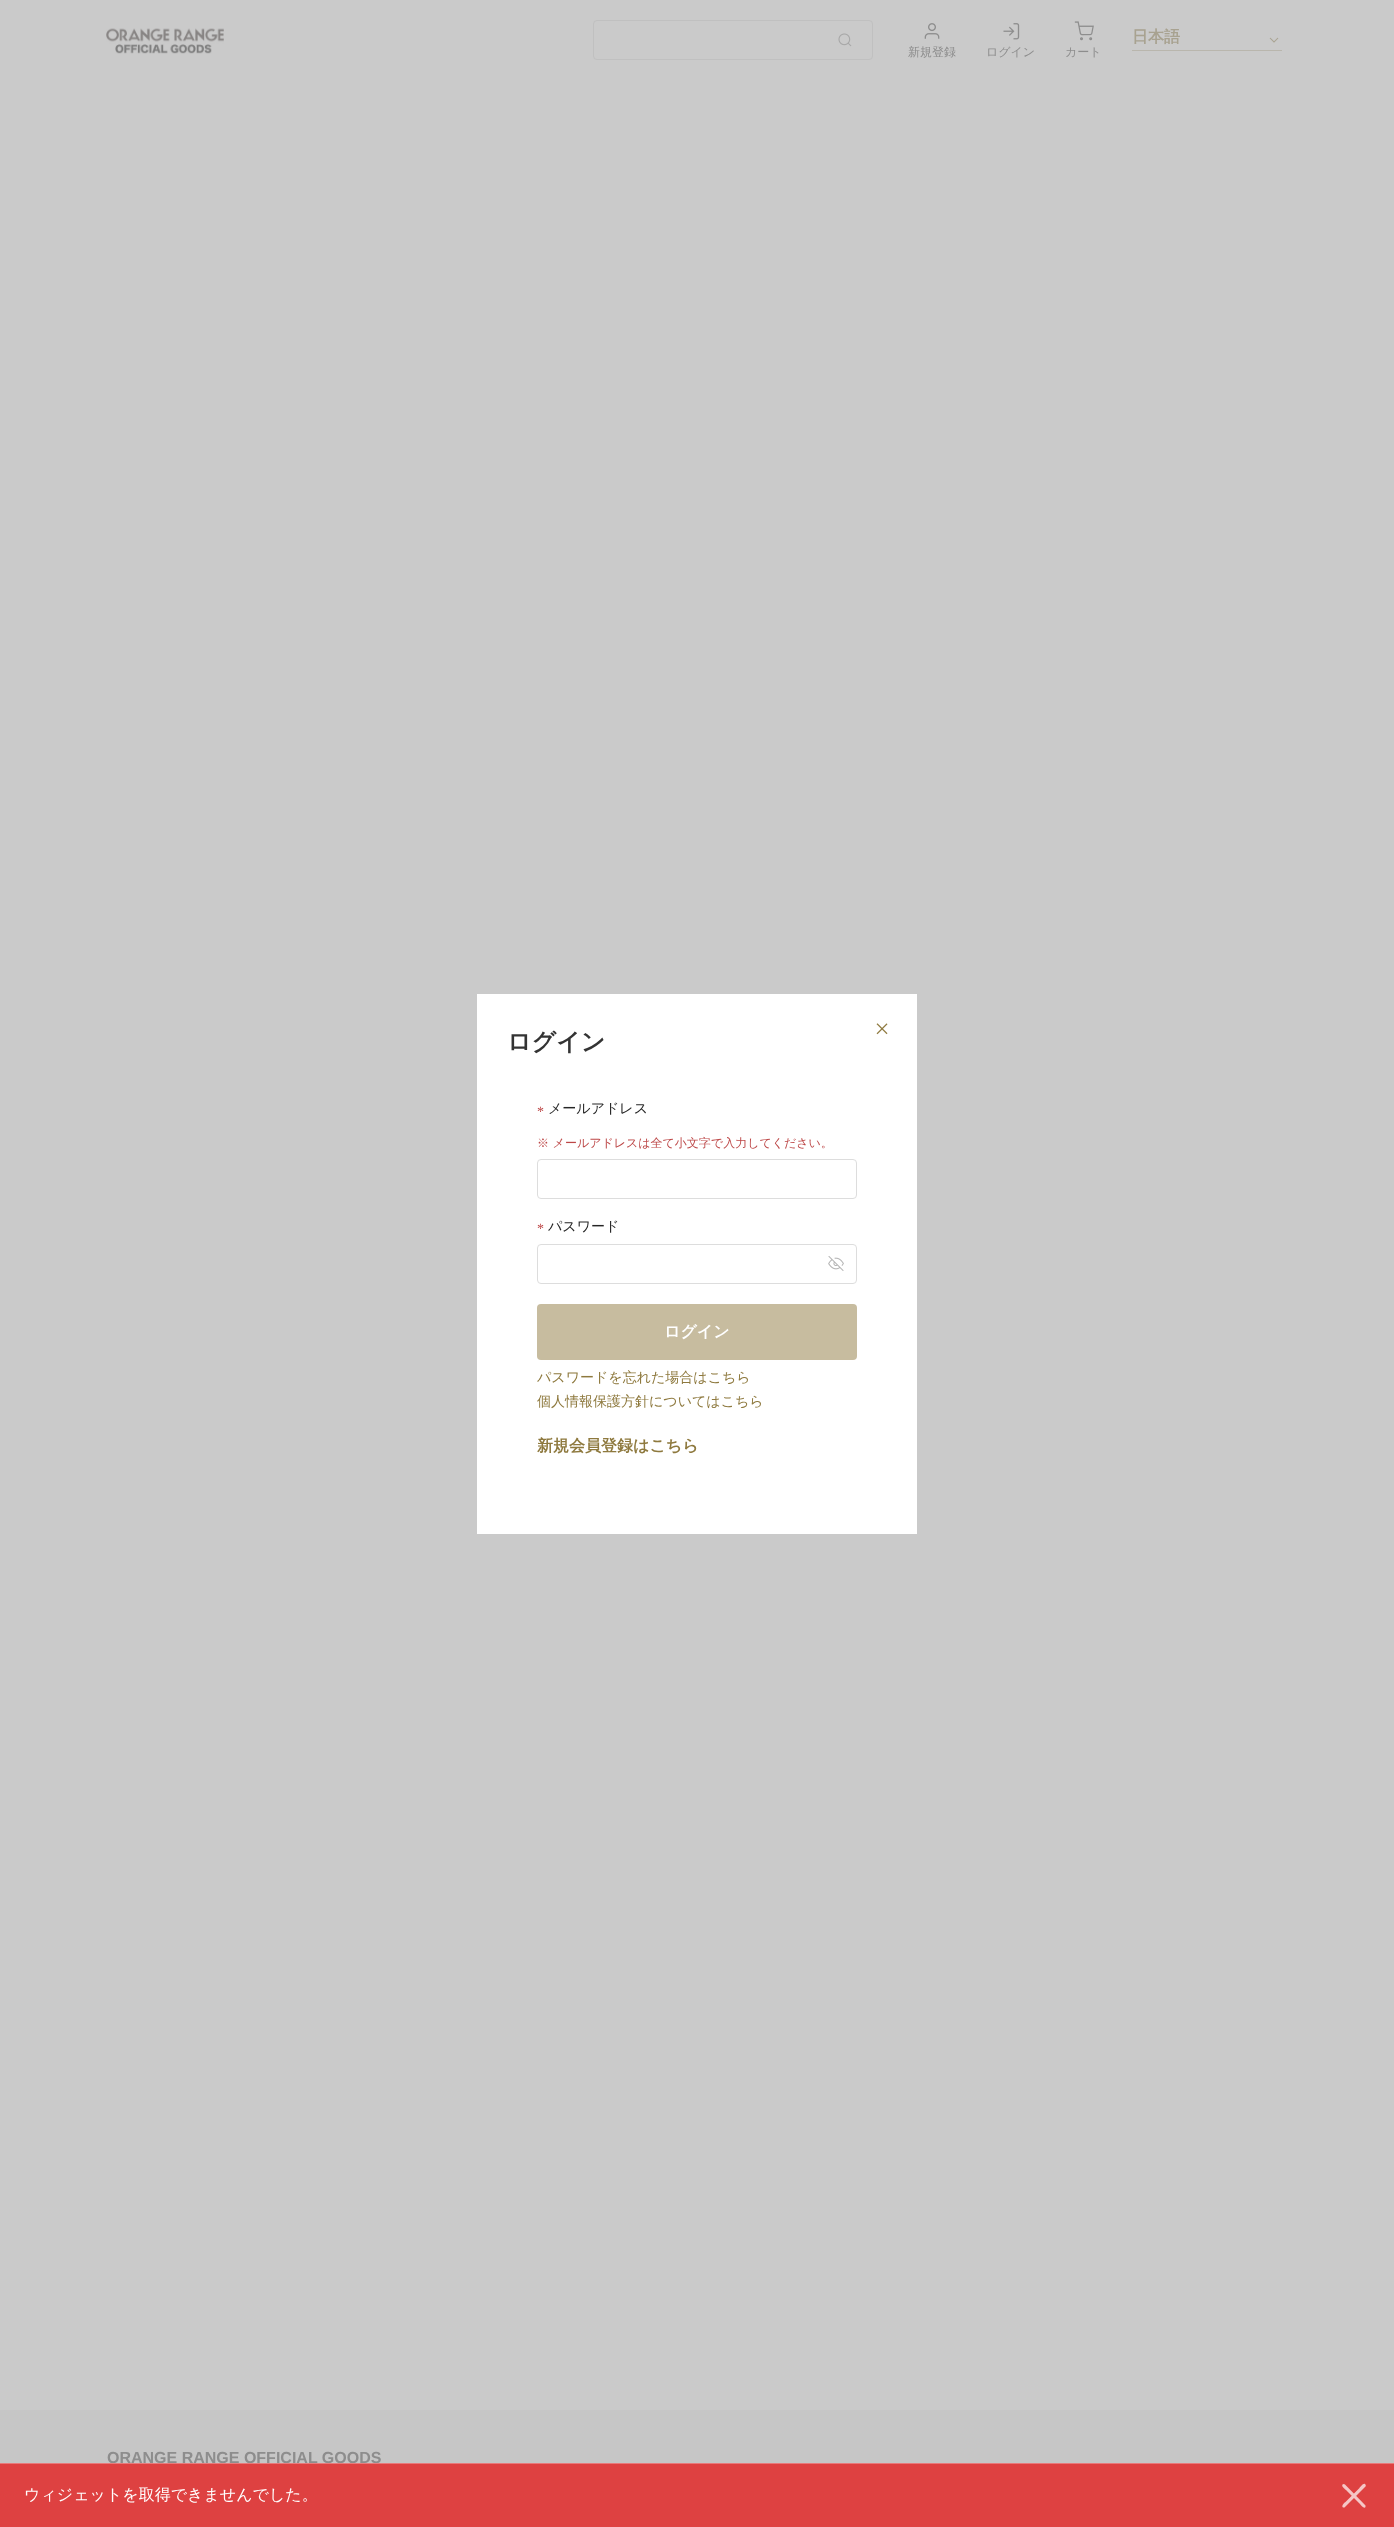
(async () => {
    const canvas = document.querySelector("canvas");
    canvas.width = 1394;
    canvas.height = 2527;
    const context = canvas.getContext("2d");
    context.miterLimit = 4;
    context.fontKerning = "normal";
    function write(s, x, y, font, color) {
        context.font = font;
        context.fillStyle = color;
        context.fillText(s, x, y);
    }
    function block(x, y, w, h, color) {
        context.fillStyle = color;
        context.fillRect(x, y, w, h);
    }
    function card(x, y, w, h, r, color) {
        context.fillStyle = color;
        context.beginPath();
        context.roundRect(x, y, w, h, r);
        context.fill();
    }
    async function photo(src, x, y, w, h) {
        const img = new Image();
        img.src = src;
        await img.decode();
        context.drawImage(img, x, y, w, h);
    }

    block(0, 0, 1394, 2527, "rgb(202, 202, 202)");
    await photo("media/1.png", 106, 28, 118, 26);
    context.beginPath();
    context.roundRect(593.5, 20.5, 279, 39, 3.5);
    context.strokeStyle = "rgb(192, 192, 192)";
    context.stroke();
    await photo("media/2.png", 838, 33, 14, 14);
    block(1132, 50, 150, 1, "rgb(185, 182, 173)");
    write("日本語", 1132, 42, "bold 16px WenQuanYi Zen Hei", "rgb(168, 162, 144)");
    await photo("media/3.png", 1269, 37, 10, 6);
    await photo("media/4.png", 924, 23, 16, 16);
    write("新規登録", 908, 56, "500 12px WenQuanYi Zen Hei", "rgb(141, 141, 141)");
    await photo("media/5.png", 1003, 23, 17, 17);
    write("ログイン", 986, 56, "500 12px WenQuanYi Zen Hei", "rgb(141, 141, 141)");
    await photo("media/6.png", 1074, 21, 20, 20);
    write("カート", 1065, 56, "500 12px WenQuanYi Zen Hei", "rgb(141, 141, 141)");
    block(477, 994, 440, 540, "rgb(255, 255, 255)");
    await photo("media/7.png", 876, 1023, 12, 12);
    write("ログイン", 507, 1050, "bold 24px WenQuanYi Zen Hei", "rgb(51, 51, 51)");
    write("*", 537, 1116, "14px Liberation Serif", "rgb(189, 71, 71)");
    write("メールアドレス", 548, 1113, "500 14px WenQuanYi Zen Hei", "rgb(38, 38, 38)");
    write("※ メールアドレスは全て小文字で入力してください。", 537, 1147, "500 12px WenQuanYi Zen Hei", "rgb(189, 71, 71)");
    context.beginPath();
    context.roundRect(537.5, 1159.5, 319, 39, 3.5);
    context.strokeStyle = "rgb(221, 221, 221)";
    context.stroke();
    write("*", 537, 1233, "14px Liberation Serif", "rgb(189, 71, 71)");
    write("パスワード", 548, 1231, "500 14px WenQuanYi Zen Hei", "rgb(38, 38, 38)");
    context.beginPath();
    context.roundRect(537.5, 1244.5, 319, 39, 3.5);
    context.stroke();
    await photo("media/8.png", 828, 1256, 16, 15);
    card(537, 1304, 320, 56, 4, "rgb(199, 188, 159)");
    write("ログイン", 664, 1337, "bold 16px WenQuanYi Zen Hei", "rgb(255, 255, 255)");
    write("パスワードを忘れた場合はこちら", 537, 1382, "500 14px WenQuanYi Zen Hei", "rgb(142, 121, 62)");
    write("個人情報保護方針についてはこちら", 537, 1406, "500 14px WenQuanYi Zen Hei", "rgb(142, 121, 62)");
    write("新規会員登録はこちら", 537, 1451, "bold 16px WenQuanYi Zen Hei", "rgb(142, 121, 62)");
    block(0, 2410, 1394, 53, "rgb(198, 198, 198)");
    write("ORANGE RANGE OFFICIAL GOODS", 107, 2463, "bold 16px Liberation Sans", "rgb(141, 141, 141)");
    block(0, 2464, 1394, 63, "rgb(222, 65, 65)");
    block(0, 2463, 1394, 1, "rgb(232, 122, 122)");
    write("ウィジェットを取得できませんでした。", 24, 2500, "500 16px WenQuanYi Zen Hei", "rgb(255, 255, 255)");
    context.fillStyle = "rgb(245, 198, 198)";
    context.beginPath();
    context.moveTo(1345, 2484.5);
    context.lineTo(1365.5, 2505.5);
    context.lineTo(1365.5, 2507);
    context.bezierCurveTo(1364, 2509.5, 1360, 2504, 1359.5, 2503.5);
    context.lineTo(1346, 2490);
    context.bezierCurveTo(1345.5, 2489.5, 1341, 2486.5, 1342.5, 2484.5);
    context.bezierCurveTo(1343, 2484, 1344, 2483.5, 1345, 2484.5);
    context.closePath();
    context.fill();
    context.beginPath();
    context.moveTo(1365.5, 2486.5);
    context.lineTo(1344.5, 2507.5);
    context.lineTo(1343, 2507.5);
    context.bezierCurveTo(1340.5, 2505.5, 1346, 2501.5, 1346, 2501.5);
    context.lineTo(1359.5, 2488);
    context.bezierCurveTo(1360, 2487.5, 1363, 2483, 1365, 2484);
    context.bezierCurveTo(1366, 2485, 1366, 2486, 1365.5, 2486.5);
    context.closePath();
    context.fill();
})();
